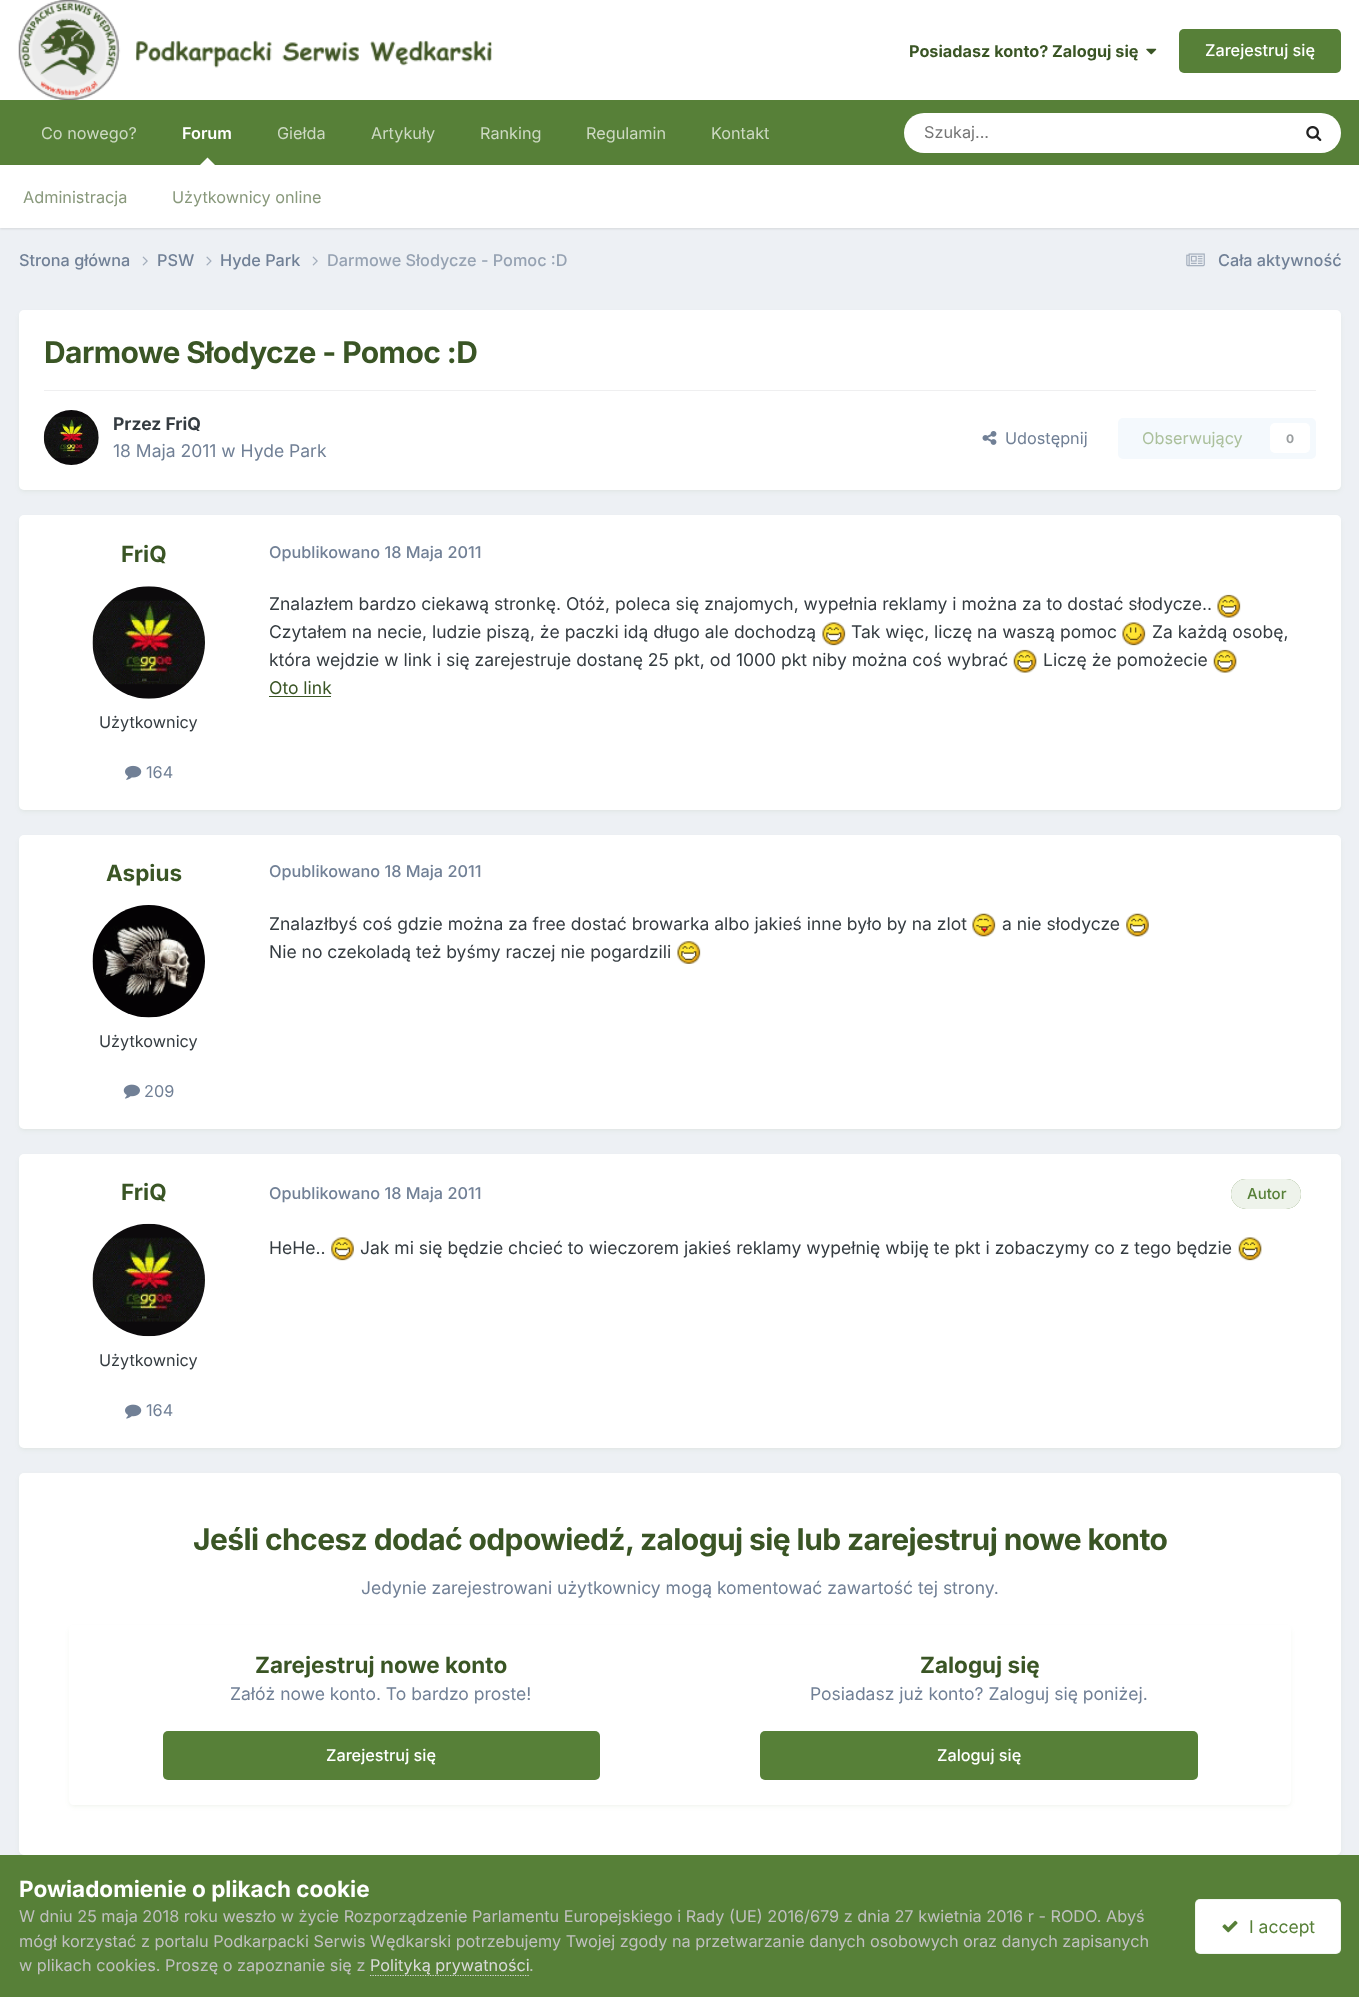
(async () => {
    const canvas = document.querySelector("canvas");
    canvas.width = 1359;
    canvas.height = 1997;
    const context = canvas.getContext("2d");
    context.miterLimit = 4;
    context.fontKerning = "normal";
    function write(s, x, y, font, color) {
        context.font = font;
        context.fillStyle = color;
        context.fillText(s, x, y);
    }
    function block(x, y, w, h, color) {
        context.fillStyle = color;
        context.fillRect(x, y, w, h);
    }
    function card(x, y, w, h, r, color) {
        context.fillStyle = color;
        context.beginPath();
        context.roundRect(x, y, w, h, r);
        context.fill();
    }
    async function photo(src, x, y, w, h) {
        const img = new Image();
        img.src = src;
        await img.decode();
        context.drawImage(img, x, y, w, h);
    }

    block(0, 0, 1359, 1997, "rgb(237, 240, 244)");
    block(0, 0, 1359, 100, "rgb(255, 255, 255)");
    await photo("media/1.png", 18, 0, 474, 100);
    write("Posiadasz konto? Zaloguj się", 909, 57, "bold 16.25px Inter", "rgb(58, 85, 37)");
    await photo("media/2.png", 1146, 48, 11, 7);
    card(1179, 29, 162, 44, 5, "rgb(87, 128, 56)");
    write("Zarejestruj się", 1205, 56, "500 16.25px Inter", "rgb(255, 255, 255)");
    block(0, 100, 1359, 65, "rgb(87, 128, 56)");
    write("Giełda", 277, 139, "16.25px Inter", "rgb(205, 217, 195)");
    write("Ranking", 480, 139, "16.25px Inter", "rgb(205, 217, 195)");
    write("Regulamin", 586, 139, "16.25px Inter", "rgb(205, 217, 195)");
    write("Forum", 182, 139, "600 16.25px Inter", "rgb(255, 255, 255)");
    context.fillStyle = "rgba(0, 0, 0, 0.1)";
    context.filter = "blur(1px)";
    context.beginPath();
    context.rect(0, 166, 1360, 63);
    context.fill();
    context.filter = "none";
    context.fillStyle = "rgb(255, 255, 255)";
    context.beginPath();
    context.moveTo(215, 165);
    context.lineTo(200, 165);
    context.lineTo(207.5, 157.5);
    context.closePath();
    context.fill();
    block(0, 165, 1359, 63, "rgb(255, 255, 255)");
    write("Administracja", 23, 203, "16.25px Inter", "rgb(137, 153, 124)");
    write("Użytkownicy online", 172, 203, "16.25px Inter", "rgb(137, 153, 124)");
    write("Co nowego?", 41, 139, "16.25px Inter", "rgb(205, 217, 195)");
    write("Artykuły", 371, 139, "16.25px Inter", "rgb(205, 217, 195)");
    write("Kontakt", 711, 139, "16.25px Inter", "rgb(205, 217, 195)");
    card(904, 113, 437, 40, 20, "rgb(255, 255, 255)");
    write("Szukaj...", 924, 138, "16.25px Inter", "rgb(117, 117, 117)");
    await photo("media/3.png", 1306, 126, 16, 16);
    write("Strona główna", 19, 266, "500 16.25px Inter", "rgb(113, 128, 150)");
    await photo("media/4.png", 142, 256, 6, 10);
    write("PSW", 157, 266, "500 16.25px Inter", "rgb(113, 128, 150)");
    await photo("media/5.png", 206, 256, 6, 10);
    write("Hyde Park", 220, 266, "500 16.25px Inter", "rgb(113, 128, 150)");
    await photo("media/4.png", 312, 256, 6, 10);
    write("Darmowe Słodycze - Pomoc :D", 327, 266, "500 16.25px Inter", "rgb(150, 162, 178)");
    await photo("media/6.png", 1186, 253, 19, 14);
    write("Cała aktywność", 1218, 266, "500 16.25px Inter", "rgb(113, 128, 150)");
    context.fillStyle = "rgba(87, 128, 56, 0.1)";
    context.filter = "blur(2.5px)";
    context.beginPath();
    context.roundRect(20, 314, 1320, 177, 4);
    context.fill();
    context.filter = "none";
    card(19, 310, 1322, 180, 5, "rgb(255, 255, 255)");
    context.letterSpacing = "-0.6px";
    write("Darmowe Słodycze - Pomoc :D", 44, 363, "bold 30px Inter", "rgb(58, 85, 37)");
    block(44, 390, 1272, 1, "rgb(239, 239, 240)");
    await photo("media/7.png", 43, 410, 56, 55);
    context.letterSpacing = "0px";
    write("Przez FriQ", 113, 430, "bold 17.5px Inter", "rgb(53, 60, 65)");
    write("18 Maja 2011 w Hyde Park", 113, 457, "17.5px Inter", "rgb(113, 128, 150)");
    await photo("media/8.png", 982, 431, 15, 14);
    write("Udostępnij", 1005, 444, "16.25px Inter", "rgb(113, 128, 150)");
    card(1118, 418, 198, 41, 5, "rgb(244, 249, 253)");
    write("Obserwujący", 1142, 444, "16.25px Inter", "rgb(171, 192, 156)");
    card(1270, 423, 40, 30, 5, "rgb(255, 255, 255)");
    write("0", 1286, 443, "bold 12px Inter", "rgb(154, 158, 160)");
    context.fillStyle = "rgba(87, 128, 56, 0.1)";
    context.filter = "blur(2.5px)";
    context.beginPath();
    context.roundRect(20, 519, 1320, 292, 4);
    context.fill();
    context.filter = "none";
    card(19, 515, 1322, 295, 5, "rgb(255, 255, 255)");
    write("FriQ", 121, 562, "bold 22.5px Inter", "rgb(58, 85, 37)");
    await photo("media/9.png", 92, 586, 113, 113);
    write("Użytkownicy", 99, 728, "16.25px Inter", "rgb(53, 60, 65)");
    await photo("media/10.png", 125, 765, 17, 15);
    write("164", 146, 778, "16.25px Inter", "rgb(113, 128, 150)");
    write("Opublikowano 18 Maja 2011", 269, 558, "500 16.25px Inter", "rgb(113, 128, 150)");
    write("Znalazłem bardzo ciekawą stronkę. Otóż, poleca się znajomych, wypełnia reklamy i można za to dostać słodycze..", 269, 610, "17.5px Inter", "rgb(53, 60, 65)");
    await photo("media/11.png", 1217, 594, 24, 24);
    write("Czytałem na necie, ludzie piszą, że paczki idą długo ale dochodzą", 269, 638, "17.5px Inter", "rgb(53, 60, 65)");
    await photo("media/12.png", 822, 622, 24, 24);
    write("Tak więc, liczę na waszą pomoc", 851, 638, "17.5px Inter", "rgb(53, 60, 65)");
    await photo("media/13.png", 1122, 622, 24, 24);
    write("Za każdą osobę,", 1152, 638, "17.5px Inter", "rgb(53, 60, 65)");
    write("która wejdzie w link i się zarejestruje dostanę 25 pkt, od 1000 pkt niby można coś wybrać", 269, 666, "17.5px Inter", "rgb(53, 60, 65)");
    await photo("media/14.png", 1013, 649, 24, 24);
    write("Liczę że pomożecie", 1043, 666, "17.5px Inter", "rgb(53, 60, 65)");
    await photo("media/14.png", 1213, 649, 24, 24);
    write("Oto link", 269, 694, "17.5px Inter", "rgb(58, 85, 37)");
    block(269, 696, 62, 1, "rgb(58, 85, 37)");
    context.fillStyle = "rgba(87, 128, 56, 0.1)";
    context.filter = "blur(2.5px)";
    context.beginPath();
    context.roundRect(20, 839, 1320, 291, 4);
    context.fill();
    context.filter = "none";
    card(19, 835, 1322, 294, 5, "rgb(255, 255, 255)");
    write("Aspius", 106, 881, "bold 22.5px Inter", "rgb(58, 85, 37)");
    await photo("media/15.png", 92, 905, 113, 113);
    write("Użytkownicy", 99, 1047, "16.25px Inter", "rgb(53, 60, 65)");
    await photo("media/16.png", 123, 1084, 17, 15);
    write("209", 144, 1097, "16.25px Inter", "rgb(113, 128, 150)");
    write("Opublikowano 18 Maja 2011", 269, 877, "500 16.25px Inter", "rgb(113, 128, 150)");
    write("Znalazłbyś coś gdzie można za free dostać browarka albo jakieś inne było by na zlot", 269, 930, "17.5px Inter", "rgb(53, 60, 65)");
    await photo("media/17.png", 972, 913, 24, 24);
    write("a nie słodycze", 1002, 930, "17.5px Inter", "rgb(53, 60, 65)");
    await photo("media/18.png", 1126, 913, 23, 24);
    write("Nie no czekoladą też byśmy raczej nie pogardzili", 269, 958, "17.5px Inter", "rgb(53, 60, 65)");
    await photo("media/19.png", 677, 941, 24, 23);
    context.fillStyle = "rgba(87, 128, 56, 0.1)";
    context.filter = "blur(2.5px)";
    context.beginPath();
    context.roundRect(20, 1158, 1320, 291, 4);
    context.fill();
    context.filter = "none";
    card(19, 1154, 1322, 294, 5, "rgb(255, 255, 255)");
    write("FriQ", 121, 1200, "bold 22.5px Inter", "rgb(58, 85, 37)");
    await photo("media/20.png", 92, 1223, 113, 114);
    write("Użytkownicy", 99, 1366, "16.25px Inter", "rgb(53, 60, 65)");
    await photo("media/21.png", 125, 1404, 17, 15);
    write("164", 146, 1416, "16.25px Inter", "rgb(113, 128, 150)");
    write("Opublikowano 18 Maja 2011", 269, 1199, "500 16.25px Inter", "rgb(113, 128, 150)");
    card(1231, 1179, 70, 30, 15, "rgb(87, 128, 56)");
    card(1231, 1179, 70, 30, 15, "rgba(255, 255, 255, 0.9)");
    write("Autor", 1247, 1199, "500 15px Inter", "rgb(87, 128, 56)");
    write("HeHe..", 269, 1254, "17.5px Inter", "rgb(53, 60, 65)");
    await photo("media/22.png", 331, 1237, 23, 24);
    write("Jak mi się będzie chcieć to wieczorem jakieś reklamy wypełnię wbiję te pkt i zobaczymy co z tego będzie", 360, 1254, "17.5px Inter", "rgb(53, 60, 65)");
    await photo("media/23.png", 1238, 1237, 24, 24);
    context.fillStyle = "rgba(87, 128, 56, 0.1)";
    context.filter = "blur(2.5px)";
    context.beginPath();
    context.roundRect(20, 1476, 1320, 380, 4);
    context.fill();
    context.filter = "none";
    card(19, 1473, 1322, 382, 5, "rgb(255, 255, 255)");
    context.letterSpacing = "-0.6px";
    write("Jeśli chcesz dodać odpowiedź, zaloguj się lub zarejestruj nowe konto", 193, 1550, "bold 30px Inter", "rgb(58, 85, 37)");
    context.letterSpacing = "0px";
    write("Jedynie zarejestrowani użytkownicy mogą komentować zawartość tej strony.", 361, 1594, "17.5px Inter", "rgb(113, 128, 150)");
    context.save();
    context.beginPath();
    context.moveTo(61, 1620);
    context.lineTo(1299, 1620);
    context.lineTo(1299, 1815);
    context.lineTo(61, 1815);
    context.closePath();
    context.moveTo(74, 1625);
    context.lineTo(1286, 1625);
    context.bezierCurveTo(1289, 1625, 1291, 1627, 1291, 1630);
    context.lineTo(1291, 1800);
    context.bezierCurveTo(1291, 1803, 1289, 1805, 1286, 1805);
    context.lineTo(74, 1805);
    context.bezierCurveTo(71, 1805, 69, 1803, 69, 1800);
    context.lineTo(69, 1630);
    context.bezierCurveTo(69, 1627, 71, 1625, 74, 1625);
    context.closePath();
    context.clip("evenodd");
    context.fillStyle = "rgba(87, 128, 56, 0.1)";
    context.filter = "blur(2.5px)";
    context.beginPath();
    context.roundRect(70, 1629, 1220, 177, 4);
    context.fill();
    context.filter = "none";
    context.restore();
    write("Zarejestruj nowe konto", 255, 1673, "bold 22.5px Inter", "rgb(58, 85, 37)");
    write("Załóż nowe konto. To bardzo proste!", 230, 1700, "17.5px Inter", "rgb(113, 128, 150)");
    card(163, 1731, 437, 49, 5, "rgb(87, 128, 56)");
    write("Zarejestruj się", 326, 1761, "500 16.25px Inter", "rgb(255, 255, 255)");
    write("Zaloguj się", 920, 1673, "bold 22.5px Inter", "rgb(58, 85, 37)");
    write("Posiadasz już konto? Zaloguj się poniżej.", 810, 1700, "17.5px Inter", "rgb(113, 128, 150)");
    card(760, 1731, 438, 49, 5, "rgb(87, 128, 56)");
    write("Zaloguj się", 937, 1761, "500 16.25px Inter", "rgb(255, 255, 255)");
    block(0, 1855, 1359, 142, "rgb(87, 128, 56)");
    write("Powiadomienie o plikach cookie", 19, 1897, "bold 22.5px Inter", "rgb(255, 255, 255)");
    write("W dniu 25 maja 2018 roku weszło w życie Rozporządzenie Parlamentu Europejskiego i Rady (UE) 2016/679 z dnia 27 kwietnia 2016 r - RODO. Abyś", 19, 1922, "16.25px Inter", "rgb(192, 192, 192)");
    write("mógł korzystać z portalu Podkarpacki Serwis Wędkarski potrzebujemy Twojej zgody na przetwarzanie danych osobowych oraz danych zapisanych", 19, 1947, "16.25px Inter", "rgb(192, 192, 192)");
    write("w plikach cookies. Proszę o zapoznanie się z", 19, 1971, "16.25px Inter", "rgb(192, 192, 192)");
    context.beginPath();
    context.moveTo(370, 1975.5);
    context.lineTo(530, 1975.5);
    context.strokeStyle = "rgb(218, 218, 218)";
    context.lineWidth = 1.2;
    context.setLineDash([1.25, 1.25]);
    context.stroke();
    write("Polityką prywatności", 370, 1971, "16.25px Inter", "rgb(218, 218, 218)");
    write(".", 529, 1971, "16.25px Inter", "rgb(192, 192, 192)");
    card(1195, 1899, 146, 55, 5, "rgb(255, 255, 255)");
    context.beginPath();
    context.roundRect(1195.5, 1899.5, 145, 54, 4.5);
    context.strokeStyle = "rgba(87, 128, 56, 0.07)";
    context.lineWidth = 1;
    context.setLineDash([]);
    context.stroke();
    await photo("media/24.png", 1222, 1920, 16, 13);
    write("I accept", 1249, 1933, "17.5px Inter", "rgb(87, 128, 56)");
})();
